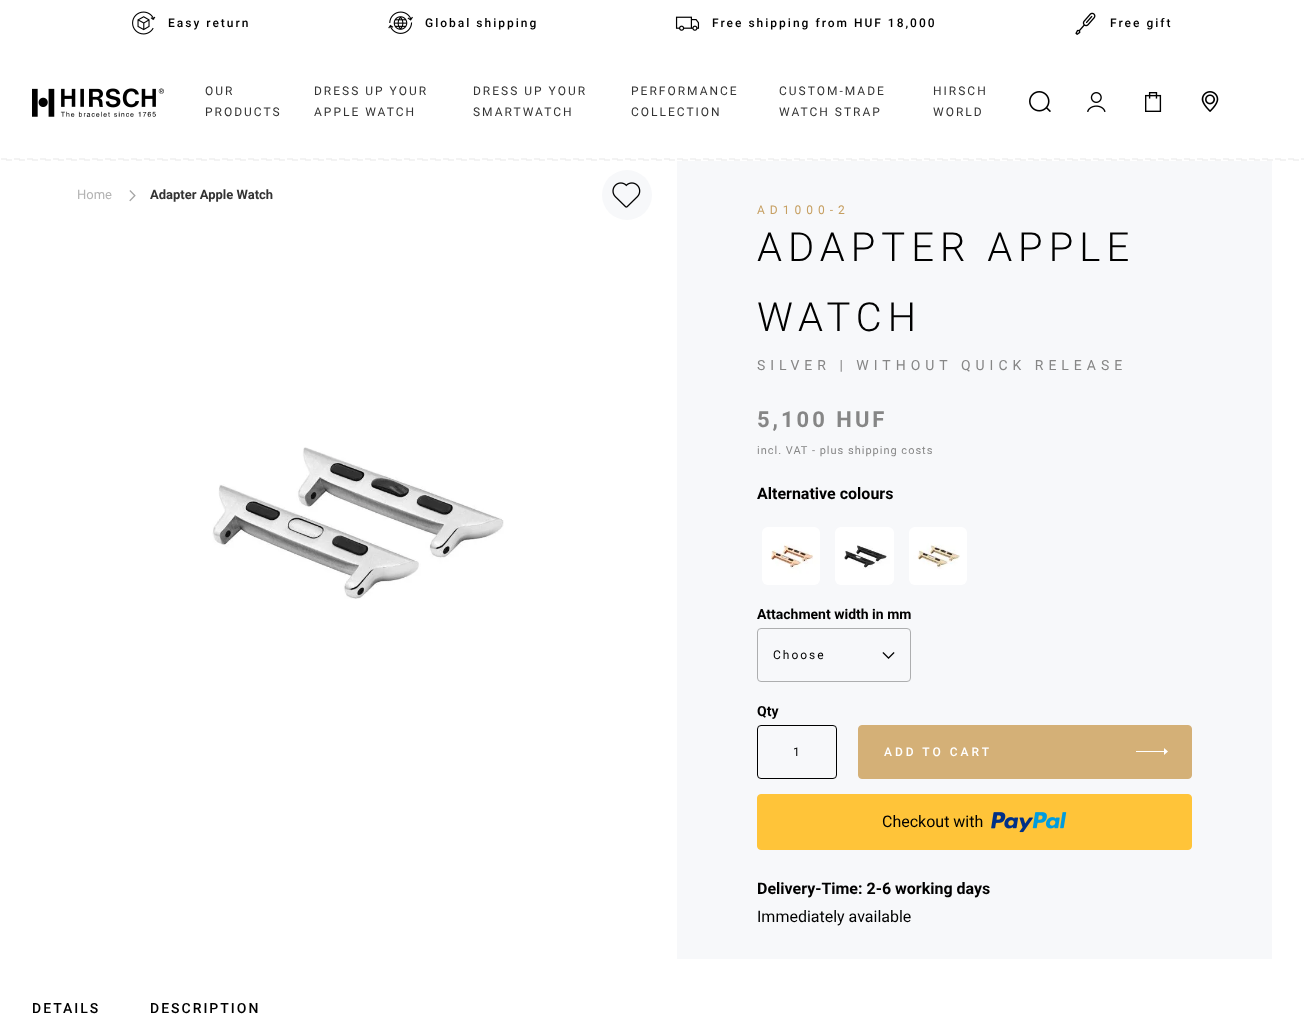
(async () => {
    const canvas = document.querySelector("canvas");
    canvas.width = 1304;
    canvas.height = 1015;
    const context = canvas.getContext("2d");
    context.miterLimit = 4;
    context.fontKerning = "normal";
    function write(s, x, y, font, color) {
        context.font = font;
        context.fillStyle = color;
        context.fillText(s, x, y);
    }
    function block(x, y, w, h, color) {
        context.fillStyle = color;
        context.fillRect(x, y, w, h);
    }
    async function photo(src, x, y, w, h) {
        const img = new Image();
        img.src = src;
        await img.decode();
        context.drawImage(img, x, y, w, h);
    }

    block(0, 0, 1304, 1015, "rgb(255, 255, 255)");
    await photo("media/1.png", 132, 11, 24, 24);
    context.letterSpacing = "2px";
    write("Easy return", 168, 27, "500 12px Roboto", "rgb(0, 0, 0)");
    await photo("media/2.png", 388, 11, 25, 23);
    write("Global shipping", 425, 27, "500 12px Roboto", "rgb(0, 0, 0)");
    await photo("media/3.png", 675, 16, 25, 15);
    write("Free shipping from HUF 18,000", 712, 27, "500 12px Roboto", "rgb(0, 0, 0)");
    await photo("media/4.png", 1075, 12, 21, 23);
    write("Free gift", 1110, 27, "500 12px Roboto", "rgb(0, 0, 0)");
    await photo("media/5.png", 32, 88, 132, 29);
    write("OUR", 205, 95, "12px Roboto", "rgb(51, 51, 51)");
    write("PRODUCTS", 205, 116, "12px Roboto", "rgb(51, 51, 51)");
    write("DRESS UP YOUR", 314, 95, "12px Roboto", "rgb(51, 51, 51)");
    write("APPLE WATCH", 314, 116, "12px Roboto", "rgb(51, 51, 51)");
    write("DRESS UP YOUR", 473, 95, "12px Roboto", "rgb(51, 51, 51)");
    write("SMARTWATCH", 473, 116, "12px Roboto", "rgb(51, 51, 51)");
    write("PERFORMANCE", 631, 95, "12px Roboto", "rgb(51, 51, 51)");
    write("COLLECTION", 631, 116, "12px Roboto", "rgb(51, 51, 51)");
    write("CUSTOM-MADE", 779, 95, "12px Roboto", "rgb(51, 51, 51)");
    write("WATCH STRAP", 779, 116, "12px Roboto", "rgb(51, 51, 51)");
    write("HIRSCH", 933, 95, "12px Roboto", "rgb(51, 51, 51)");
    write("WORLD", 933, 116, "12px Roboto", "rgb(51, 51, 51)");
    await photo("media/6.png", 1029, 91, 22, 21);
    await photo("media/7.png", 1087, 92, 19, 20);
    await photo("media/8.png", 1145, 92, 17, 20);
    await photo("media/9.png", 1201, 91, 18, 21);
    await photo("media/10.png", 1, 158, 1303, 3);
    context.letterSpacing = "0px";
    write("Home", 77, 199, "13px Roboto", "rgb(179, 179, 179)");
    await photo("media/11.png", 129, 190, 7, 12);
    write("Adapter Apple Watch", 150, 199, "bold 13px Roboto", "rgb(51, 51, 51)");
    context.fillStyle = "rgb(247, 248, 250)";
    context.beginPath();
    context.arc(627, 195, 25, 0, Math.PI * 2);
    context.fill();
    await photo("media/12.png", 612, 182, 29, 26);
    await photo("media/13.png", 212, 447, 292, 152);
    block(677, 161, 595, 798, "rgb(247, 248, 250)");
    context.letterSpacing = "5px";
    write("AD1000-2", 757, 214, "12px Roboto", "rgb(198, 159, 97)");
    context.letterSpacing = "6px";
    write("ADAPTER APPLE", 757, 261, "300 40px Roboto", "rgb(0, 0, 0)");
    write("WATCH", 757, 331, "300 40px Roboto", "rgb(0, 0, 0)");
    context.letterSpacing = "5px";
    write("SILVER | WITHOUT QUICK RELEASE", 757, 370, "14px Roboto", "rgb(134, 134, 134)");
    context.letterSpacing = "3px";
    write("5,100 HUF", 757, 427, "bold 22px Roboto", "rgb(134, 134, 134)");
    context.letterSpacing = "1px";
    write("incl. VAT - plus shipping costs", 757, 454, "11px Roboto", "rgb(134, 134, 134)");
    context.letterSpacing = "0px";
    write("Alternative colours", 757, 499, "bold 16px Roboto", "rgb(0, 0, 0)");
    await photo("media/14.png", 762, 527, 58, 58);
    await photo("media/15.png", 835, 527, 59, 58);
    await photo("media/16.png", 909, 527, 58, 58);
    write("Attachment width in mm", 757, 619, "bold 14px Roboto", "rgb(0, 0, 0)");
    await photo("media/17.png", 882, 652, 13, 7);
    context.beginPath();
    context.roundRect(757.5, 628.5, 153, 53, 3.5);
    context.strokeStyle = "rgb(173, 174, 175)";
    context.stroke();
    context.letterSpacing = "2px";
    write("Choose", 773, 659, "12px Roboto", "rgb(0, 0, 0)");
    context.letterSpacing = "0px";
    write("Qty", 757, 716, "bold 14px Roboto", "rgb(0, 0, 0)");
    context.beginPath();
    context.roundRect(757.5, 725.5, 79, 53, 3.5);
    context.strokeStyle = "rgb(0, 0, 0)";
    context.stroke();
    write("1", 793, 756, "12px Roboto", "rgb(0, 0, 0)");
    context.fillStyle = "rgb(212, 176, 119)";
    context.beginPath();
    context.roundRect(858.5, 725.5, 333, 53, 3.5);
    context.fill();
    context.strokeStyle = "rgb(212, 176, 119)";
    context.stroke();
    context.letterSpacing = "3px";
    write("ADD TO CART", 884, 756, "500 12px Roboto", "rgb(255, 255, 255)");
    context.beginPath();
    context.moveTo(1164, 748);
    context.lineTo(1168, 751.5);
    context.lineTo(1164, 755);
    context.closePath();
    context.moveTo(1136, 751);
    context.lineTo(1166.5, 751);
    context.lineTo(1166.5, 752);
    context.lineTo(1136, 752);
    context.closePath();
    context.fill();
    context.fillStyle = "rgb(255, 196, 57)";
    context.beginPath();
    context.roundRect(757.5, 794.5, 434, 55, 3.5);
    context.fill();
    context.strokeStyle = "rgb(255, 196, 57)";
    context.stroke();
    context.letterSpacing = "0px";
    write("Checkout with", 882, 827, "16px Roboto", "rgb(0, 0, 0)");
    await photo("media/18.png", 991, 812, 76, 21);
    write("Delivery-Time: 2-6 working days", 757, 894, "bold 16px Roboto", "rgb(0, 0, 0)");
    write("Immediately available", 757, 922, "16px Roboto", "rgb(0, 0, 0)");
    context.letterSpacing = "2px";
    write("DETAILS", 32, 1013, "500 14px Roboto", "rgb(0, 0, 0)");
    write("DESCRIPTION", 150, 1013, "500 14px Roboto", "rgb(0, 0, 0)");
})();
